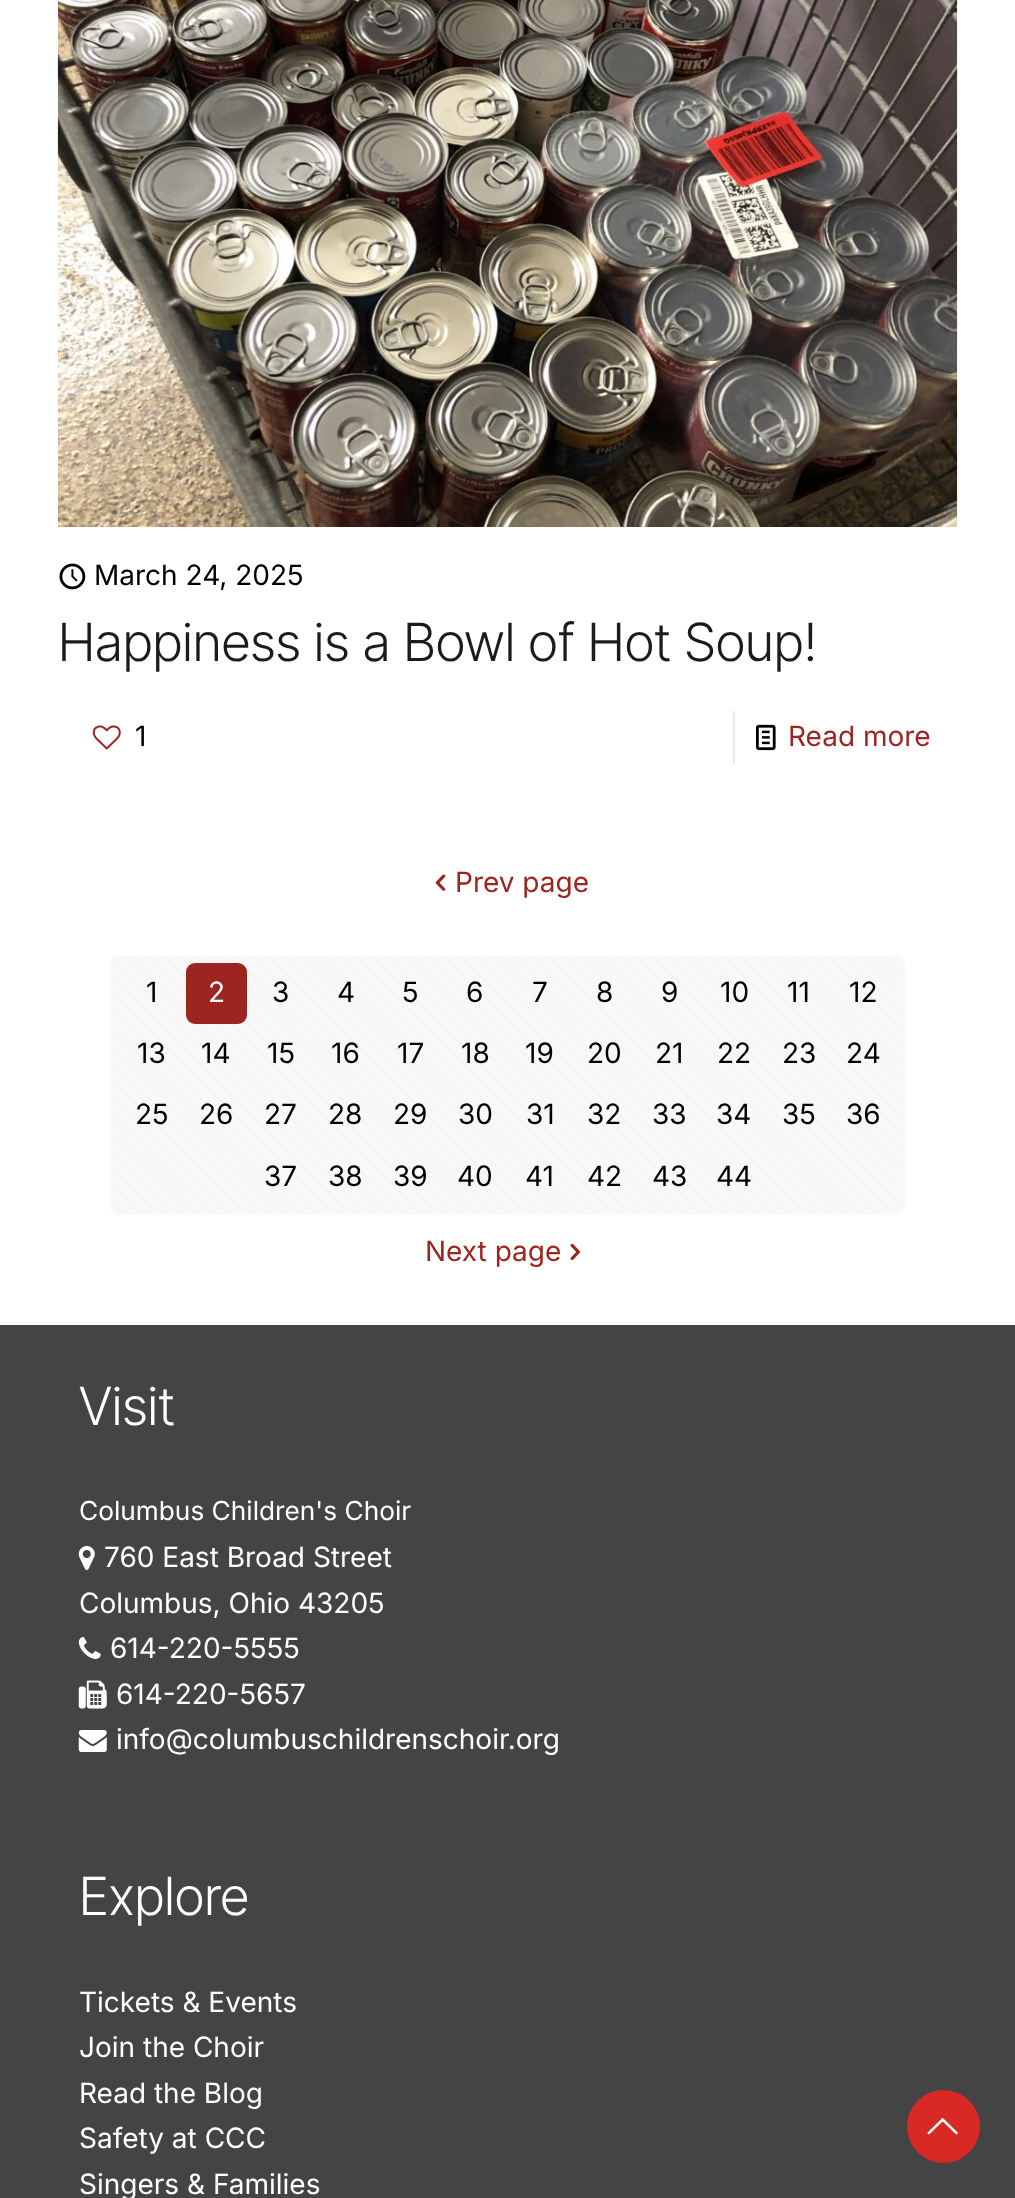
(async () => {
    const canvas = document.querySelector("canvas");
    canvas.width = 1015;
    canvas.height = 2198;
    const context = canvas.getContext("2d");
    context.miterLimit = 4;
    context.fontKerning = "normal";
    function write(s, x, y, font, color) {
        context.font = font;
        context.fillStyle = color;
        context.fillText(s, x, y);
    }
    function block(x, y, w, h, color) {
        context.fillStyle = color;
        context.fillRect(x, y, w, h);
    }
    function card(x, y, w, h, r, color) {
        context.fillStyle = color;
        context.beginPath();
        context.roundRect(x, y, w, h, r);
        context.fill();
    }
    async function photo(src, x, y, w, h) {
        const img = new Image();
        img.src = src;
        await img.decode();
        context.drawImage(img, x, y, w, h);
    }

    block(0, 0, 1015, 2198, "rgb(255, 255, 255)");
    await photo("media/1.png", 57, 0, 901, 527);
    await photo("media/2.png", 59, 563, 27, 27);
    write("March 24, 2025", 94, 585, "28px Inter", "rgb(0, 0, 0)");
    write("Happiness is a Bowl of Hot Soup!", 58, 661, "300 52.5px Inter Tight", "rgb(28, 27, 25)");
    await photo("media/3.png", 92, 725, 29, 25);
    write("1", 135, 746, "28px Inter", "rgb(0, 0, 0)");
    block(733, 711, 2, 52, "rgb(235, 235, 235)");
    await photo("media/4.png", 756, 724, 20, 27);
    write("Read more", 788, 746, "28px Inter", "rgb(157, 37, 31)");
    await photo("media/5.png", 435, 874, 11, 17);
    write("Prev page", 455, 892, "28px Inter", "rgb(157, 37, 31)");
    card(110, 956, 795, 259, 9, "rgb(248, 248, 248)");
    await photo("media/6.png", 114, 956, 787, 255);
    write("1", 146, 1002, "28px Inter", "rgb(0, 0, 0)");
    card(186, 963, 61, 61, 9, "rgb(157, 37, 31)");
    write("2", 208, 1002, "28px Inter", "rgb(255, 255, 255)");
    write("3", 272, 1002, "28px Inter", "rgb(0, 0, 0)");
    write("4", 337, 1002, "28px Inter", "rgb(0, 0, 0)");
    write("5", 402, 1002, "28px Inter", "rgb(0, 0, 0)");
    write("6", 466, 1002, "28px Inter", "rgb(0, 0, 0)");
    write("7", 532, 1002, "28px Inter", "rgb(0, 0, 0)");
    write("8", 596, 1002, "28px Inter", "rgb(0, 0, 0)");
    write("9", 661, 1002, "28px Inter", "rgb(0, 0, 0)");
    write("10", 720, 1002, "28px Inter", "rgb(0, 0, 0)");
    write("11", 787, 1002, "28px Inter", "rgb(0, 0, 0)");
    write("12", 849, 1002, "28px Inter", "rgb(0, 0, 0)");
    write("13", 137, 1063, "28px Inter", "rgb(0, 0, 0)");
    write("14", 201, 1063, "28px Inter", "rgb(0, 0, 0)");
    write("15", 267, 1063, "28px Inter", "rgb(0, 0, 0)");
    write("16", 331, 1063, "28px Inter", "rgb(0, 0, 0)");
    write("17", 397, 1063, "28px Inter", "rgb(0, 0, 0)");
    write("18", 461, 1063, "28px Inter", "rgb(0, 0, 0)");
    write("19", 525, 1063, "28px Inter", "rgb(0, 0, 0)");
    write("20", 587, 1063, "28px Inter", "rgb(0, 0, 0)");
    write("21", 655, 1063, "28px Inter", "rgb(0, 0, 0)");
    write("22", 717, 1063, "28px Inter", "rgb(0, 0, 0)");
    write("23", 782, 1063, "28px Inter", "rgb(0, 0, 0)");
    write("24", 846, 1063, "28px Inter", "rgb(0, 0, 0)");
    write("25", 135, 1124, "28px Inter", "rgb(0, 0, 0)");
    write("26", 199, 1124, "28px Inter", "rgb(0, 0, 0)");
    write("27", 264, 1124, "28px Inter", "rgb(0, 0, 0)");
    write("28", 328, 1124, "28px Inter", "rgb(0, 0, 0)");
    write("29", 393, 1124, "28px Inter", "rgb(0, 0, 0)");
    write("30", 458, 1124, "28px Inter", "rgb(0, 0, 0)");
    write("31", 526, 1124, "28px Inter", "rgb(0, 0, 0)");
    write("32", 587, 1124, "28px Inter", "rgb(0, 0, 0)");
    write("33", 652, 1124, "28px Inter", "rgb(0, 0, 0)");
    write("34", 716, 1124, "28px Inter", "rgb(0, 0, 0)");
    write("35", 782, 1124, "28px Inter", "rgb(0, 0, 0)");
    write("36", 846, 1124, "28px Inter", "rgb(0, 0, 0)");
    write("37", 264, 1186, "28px Inter", "rgb(0, 0, 0)");
    write("38", 328, 1186, "28px Inter", "rgb(0, 0, 0)");
    write("39", 393, 1186, "28px Inter", "rgb(0, 0, 0)");
    write("40", 457, 1186, "28px Inter", "rgb(0, 0, 0)");
    write("41", 525, 1186, "28px Inter", "rgb(0, 0, 0)");
    write("42", 587, 1186, "28px Inter", "rgb(0, 0, 0)");
    write("43", 652, 1186, "28px Inter", "rgb(0, 0, 0)");
    write("44", 716, 1186, "28px Inter", "rgb(0, 0, 0)");
    write("Next page", 425, 1261, "28px Inter", "rgb(157, 37, 31)");
    await photo("media/7.png", 570, 1243, 10, 18);
    block(0, 1325, 1015, 873, "rgb(68, 68, 68)");
    write("Visit", 79, 1425, "300 52.5px Inter Tight", "rgb(255, 255, 255)");
    write("Columbus Children's Choir", 79, 1520, "26.25px Inter", "rgb(255, 255, 255)");
    await photo("media/8.png", 78, 1546, 17, 24);
    write("760 East Broad Street", 104, 1567, "28px Inter", "rgb(255, 255, 255)");
    write("Columbus, Ohio 43205", 79, 1613, "28px Inter", "rgb(255, 255, 255)");
    await photo("media/9.png", 78, 1637, 23, 22);
    write("614-220-5555", 110, 1658, "28px Inter", "rgb(255, 255, 255)");
    await photo("media/10.png", 78, 1680, 29, 29);
    write("614-220-5657", 116, 1704, "28px Inter", "rgb(255, 255, 255)");
    await photo("media/11.png", 78, 1730, 29, 22);
    write("info@columbuschildrenschoir.org", 116, 1749, "28px Inter", "rgb(255, 255, 255)");
    write("Explore", 79, 1915, "300 52.5px Inter Tight", "rgb(255, 255, 255)");
    write("Tickets & Events", 79, 2012, "28px Inter", "rgb(255, 255, 255)");
    write("Join the Choir", 79, 2057, "28px Inter", "rgb(255, 255, 255)");
    write("Read the Blog", 79, 2103, "28px Inter", "rgb(255, 255, 255)");
    write("Safety at CCC", 79, 2148, "28px Inter", "rgb(255, 255, 255)");
    write("Singers & Families", 79, 2194, "28px Inter", "rgb(255, 255, 255)");
    context.fillStyle = "rgb(217, 41, 37)";
    context.beginPath();
    context.arc(943.5, 2126.5, 36.5, 0, Math.PI * 2);
    context.fill();
    await photo("media/12.png", 927, 2118, 31, 17);
})();
